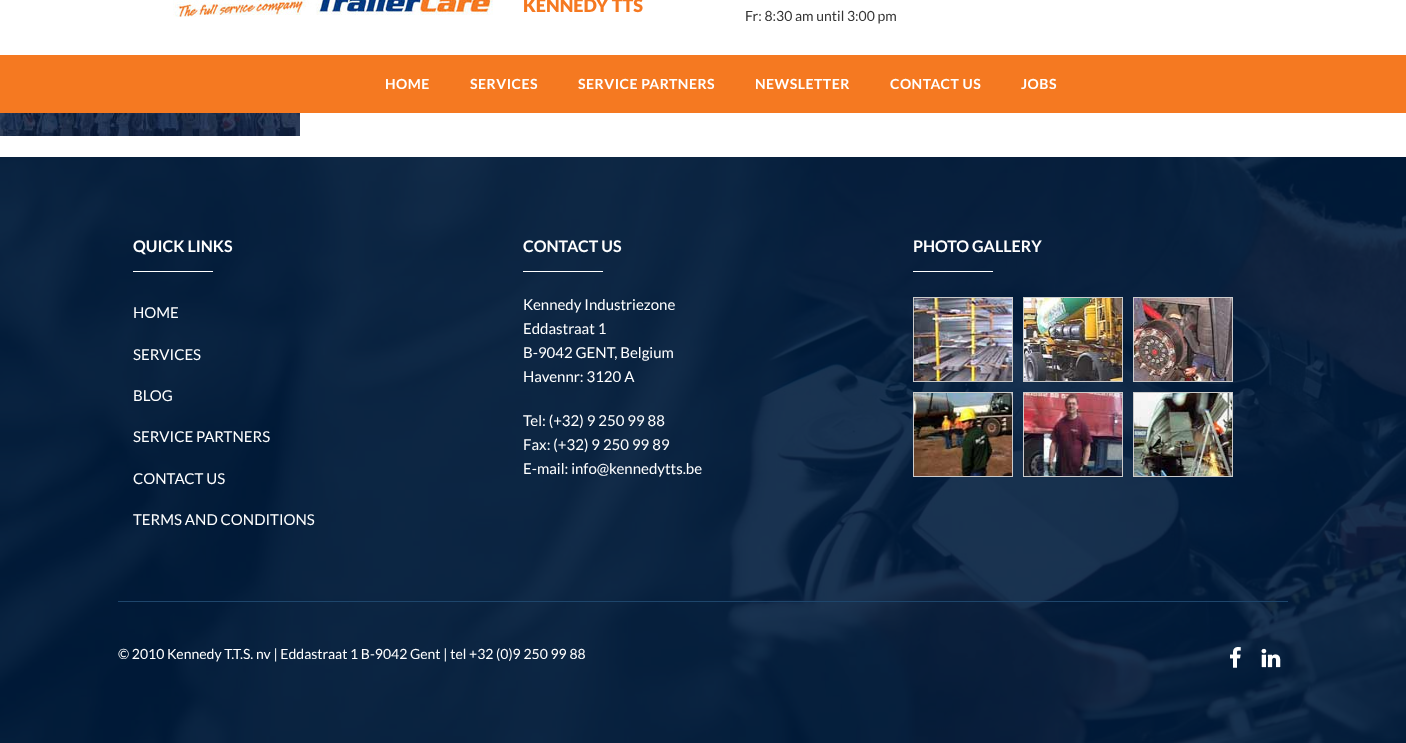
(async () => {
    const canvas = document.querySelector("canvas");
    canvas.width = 1406;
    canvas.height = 743;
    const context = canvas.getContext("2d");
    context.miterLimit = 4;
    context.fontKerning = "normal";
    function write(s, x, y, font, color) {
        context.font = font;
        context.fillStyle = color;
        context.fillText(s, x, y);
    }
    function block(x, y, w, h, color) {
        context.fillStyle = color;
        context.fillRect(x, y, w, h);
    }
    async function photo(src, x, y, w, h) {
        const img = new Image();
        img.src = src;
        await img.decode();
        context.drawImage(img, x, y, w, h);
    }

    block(0, 0, 1406, 743, "rgb(255, 255, 255)");
    await photo("media/1.png", 173, 0, 320, 17);
    write("KENNEDY TTS", 523, 12, "900 18px Lato", "rgb(245, 121, 33)");
    write("Fr: 8:30 am until 3:00 pm", 745, 21, "14px Lato", "rgb(53, 53, 53)");
    block(0, 55, 1406, 58, "rgb(245, 121, 33)");
    context.letterSpacing = "0.5px";
    write("HOME", 385, 89, "bold 14px Lato", "rgb(255, 255, 255)");
    write("SERVICES", 470, 89, "bold 14px Lato", "rgb(255, 255, 255)");
    write("SERVICE PARTNERS", 578, 89, "bold 14px Lato", "rgb(255, 255, 255)");
    write("NEWSLETTER", 755, 89, "bold 14px Lato", "rgb(255, 255, 255)");
    write("CONTACT US", 890, 89, "bold 14px Lato", "rgb(255, 255, 255)");
    write("JOBS", 1021, 89, "bold 14px Lato", "rgb(255, 255, 255)");
    await photo("media/2.png", 0, 113, 300, 23);
    await photo("media/3.png", 0, 157, 1406, 586);
    context.letterSpacing = "0px";
    write("QUICK LINKS", 133, 252, "bold 16px Lato", "rgb(255, 255, 255)");
    block(133, 271, 80, 1, "rgb(255, 255, 255)");
    write("HOME", 133, 318, "15px Lato", "rgb(255, 255, 255)");
    write("SERVICES", 133, 360, "15px Lato", "rgb(255, 255, 255)");
    write("BLOG", 133, 401, "15px Lato", "rgb(255, 255, 255)");
    write("SERVICE PARTNERS", 133, 442, "15px Lato", "rgb(255, 255, 255)");
    write("CONTACT US", 133, 484, "15px Lato", "rgb(255, 255, 255)");
    write("TERMS AND CONDITIONS", 133, 525, "15px Lato", "rgb(255, 255, 255)");
    write("CONTACT US", 523, 252, "bold 16px Lato", "rgb(255, 255, 255)");
    block(523, 271, 80, 1, "rgb(255, 255, 255)");
    write("Kennedy Industriezone", 523, 310, "15px Lato", "rgb(255, 255, 255)");
    write("Eddastraat 1", 523, 334, "15px Lato", "rgb(255, 255, 255)");
    write("B-9042 GENT, Belgium", 523, 358, "15px Lato", "rgb(255, 255, 255)");
    write("Havennr: 3120 A", 523, 382, "15px Lato", "rgb(255, 255, 255)");
    write("Tel: (+32) 9 250 99 88", 523, 426, "15px Lato", "rgb(255, 255, 255)");
    write("Fax: (+32) 9 250 99 89", 523, 450, "15px Lato", "rgb(255, 255, 255)");
    write("E-mail: info@kennedytts.be", 523, 474, "15px Lato", "rgb(255, 255, 255)");
    write("PHOTO GALLERY", 913, 252, "bold 16px Lato", "rgb(255, 255, 255)");
    block(913, 271, 80, 1, "rgb(255, 255, 255)");
    context.strokeStyle = "rgb(204, 204, 204)";
    context.strokeRect(913.5, 297.5, 99, 84);
    await photo("media/4.png", 914, 298, 98, 83);
    context.strokeRect(1023.5, 297.5, 99, 84);
    await photo("media/5.png", 1024, 298, 98, 83);
    context.strokeRect(1133.5, 297.5, 99, 84);
    await photo("media/6.png", 1134, 298, 98, 83);
    context.strokeRect(913.5, 392.5, 99, 84);
    await photo("media/7.png", 914, 393, 98, 83);
    context.strokeRect(1023.5, 392.5, 99, 84);
    await photo("media/8.png", 1024, 393, 98, 83);
    context.strokeRect(1133.5, 392.5, 99, 84);
    await photo("media/9.png", 1134, 393, 98, 83);
    block(118, 601, 1170, 1, "rgb(30, 70, 108)");
    write("© 2010 Kennedy T.T.S. nv | Eddastraat 1 B-9042 Gent | tel +32 (0)9 250 99 88", 118, 659, "14px Lato", "rgb(255, 255, 255)");
    await photo("media/10.png", 1230, 647, 11, 21);
    await photo("media/11.png", 1261, 648, 20, 20);
})();
